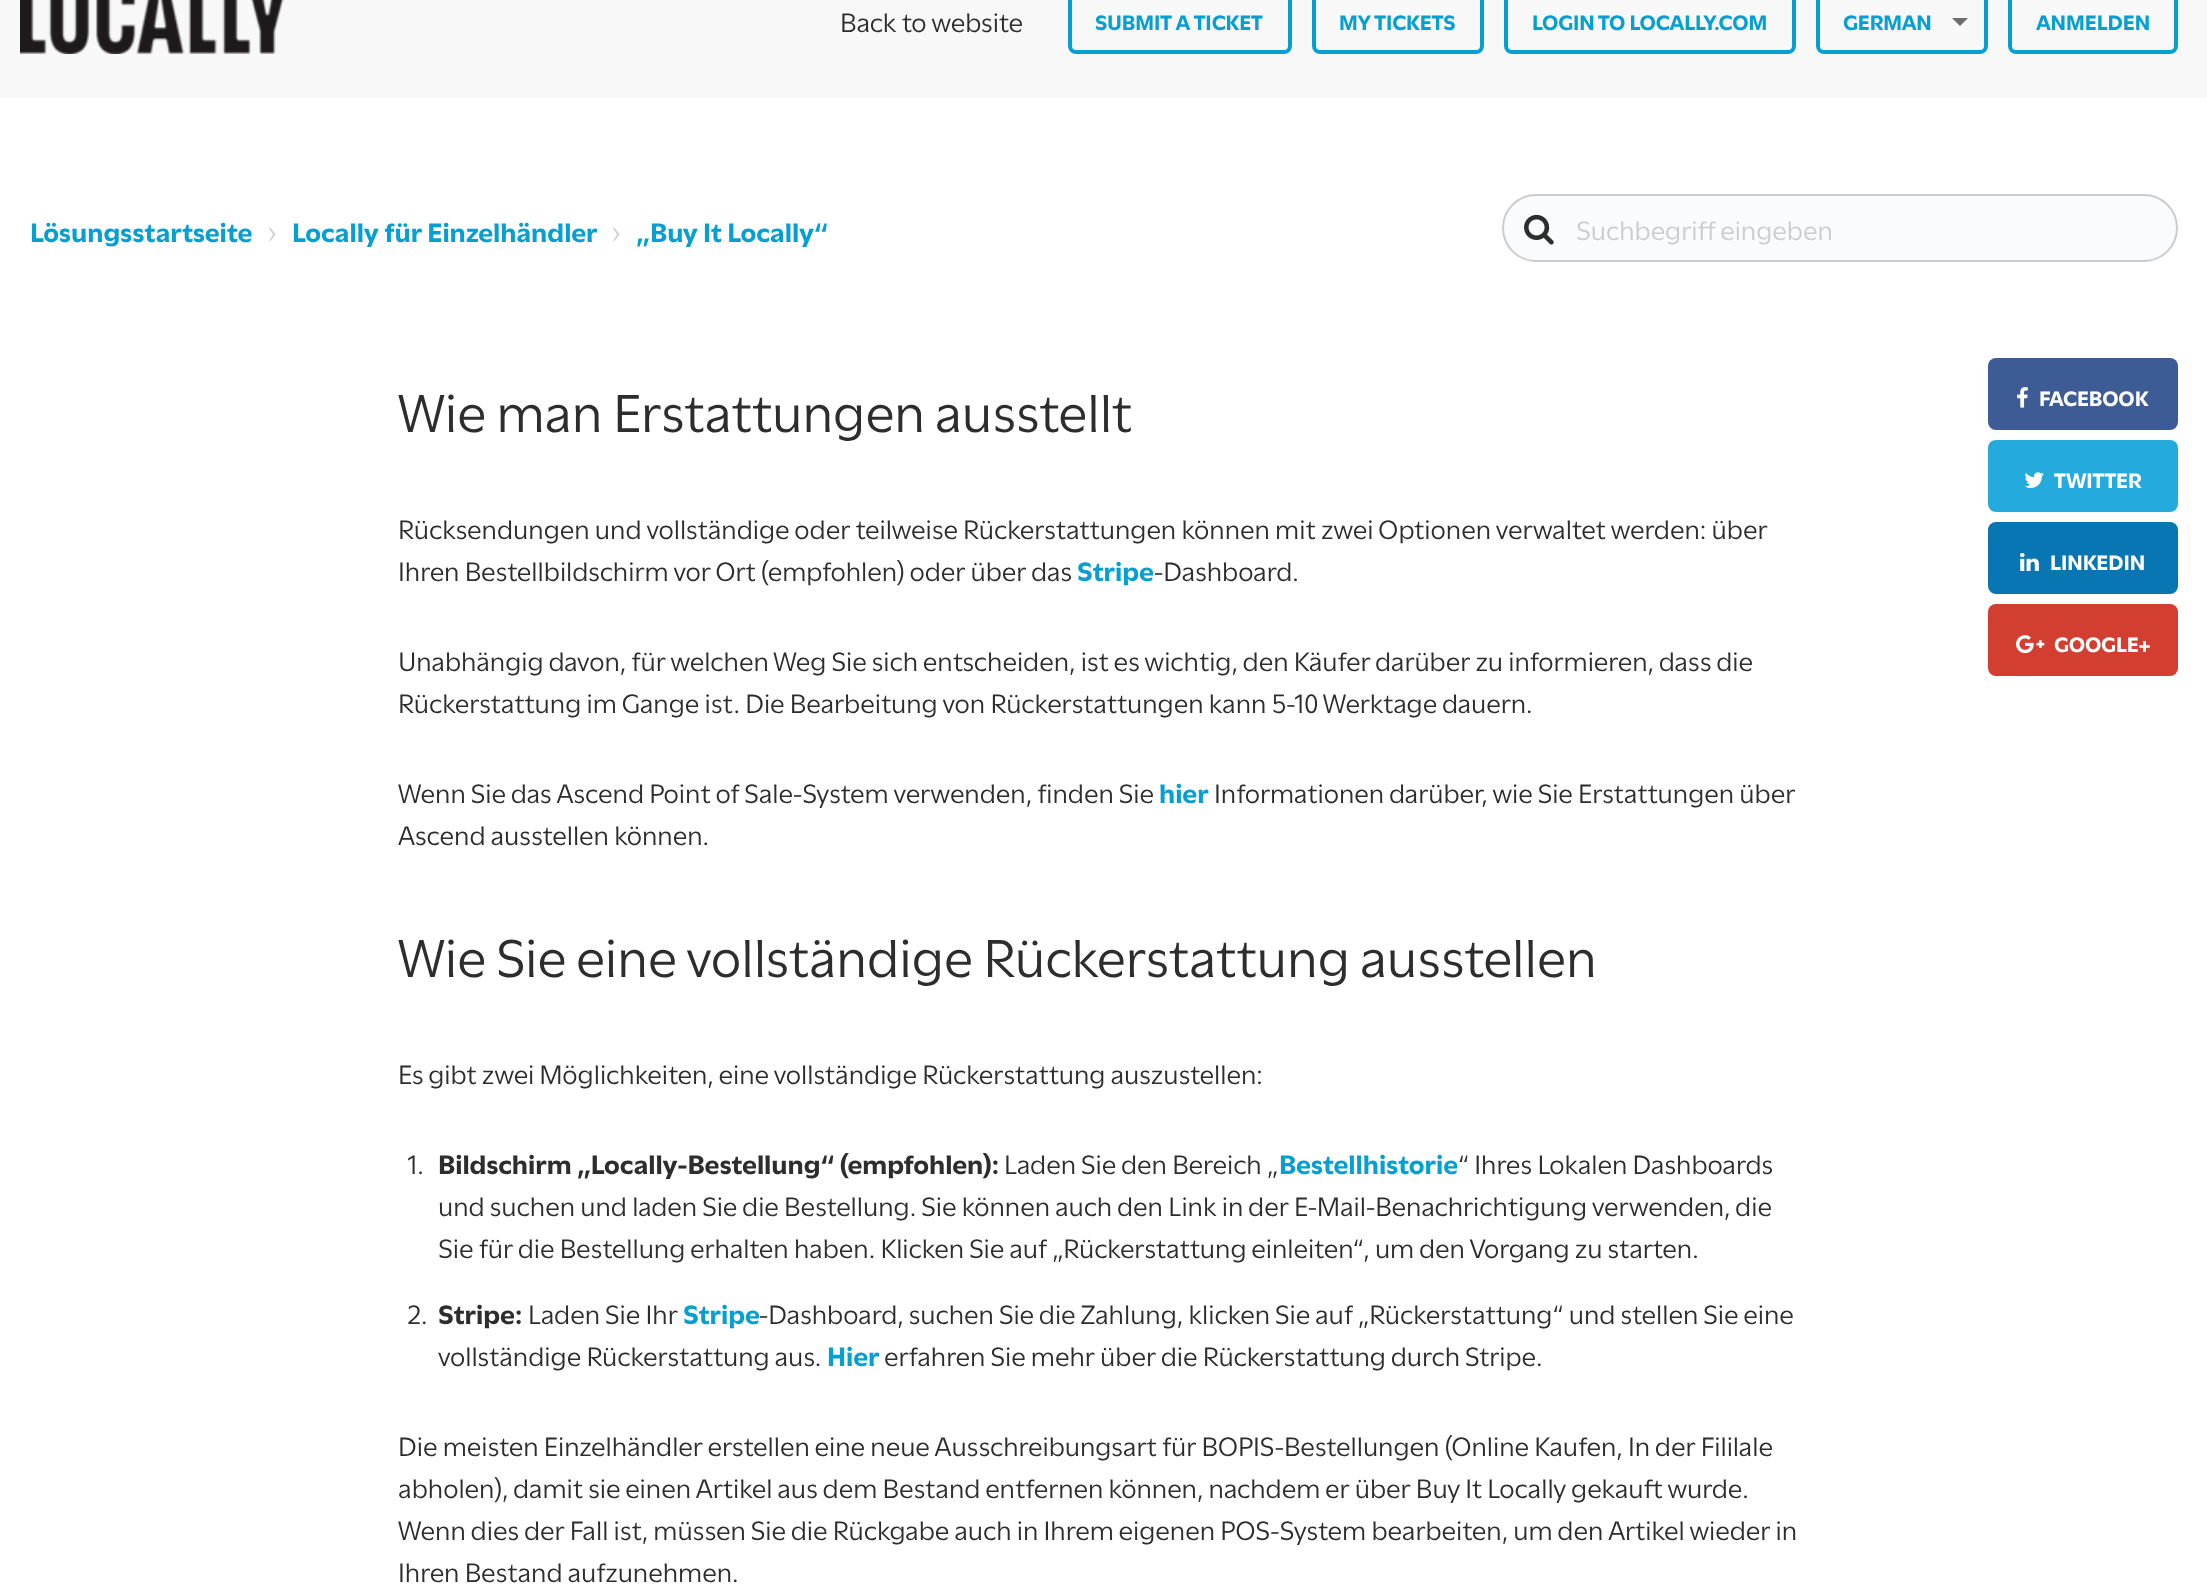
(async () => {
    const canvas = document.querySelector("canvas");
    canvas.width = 2207;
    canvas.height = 1595;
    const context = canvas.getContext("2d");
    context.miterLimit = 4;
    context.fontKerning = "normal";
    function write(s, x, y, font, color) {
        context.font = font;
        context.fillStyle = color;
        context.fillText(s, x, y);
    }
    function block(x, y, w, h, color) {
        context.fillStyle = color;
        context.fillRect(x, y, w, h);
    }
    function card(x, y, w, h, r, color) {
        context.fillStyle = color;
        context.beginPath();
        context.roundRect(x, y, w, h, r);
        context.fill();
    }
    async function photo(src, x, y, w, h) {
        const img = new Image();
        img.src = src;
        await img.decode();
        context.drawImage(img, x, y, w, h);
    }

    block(0, 0, 2207, 1595, "rgb(255, 255, 255)");
    block(0, 0, 2207, 98, "rgb(248, 248, 248)");
    await photo("media/1.png", 20, 0, 264, 54);
    write("Back to website", 840, 32, "28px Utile", "rgb(45, 45, 45)");
    context.beginPath();
    context.roundRect(1070, -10, 220, 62, 6);
    context.strokeStyle = "rgb(7, 159, 210)";
    context.lineWidth = 4;
    context.stroke();
    write("SUBMIT A TICKET", 1095, 30, "bold 22px Utile", "rgb(7, 159, 210)");
    context.beginPath();
    context.roundRect(1314, -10, 168, 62, 6);
    context.stroke();
    write("MY TICKETS", 1339, 30, "bold 22px Utile", "rgb(7, 159, 210)");
    context.beginPath();
    context.roundRect(1506, -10, 288, 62, 6);
    context.stroke();
    write("LOGIN TO LOCALLY.COM", 1532, 30, "bold 22px Utile", "rgb(7, 159, 210)");
    context.beginPath();
    context.roundRect(1818, -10, 168, 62, 6);
    context.stroke();
    write("GERMAN", 1843, 30, "bold 22px Utile", "rgb(7, 159, 210)");
    context.fillStyle = "rgb(111, 111, 111)";
    context.beginPath();
    context.moveTo(1952, 18);
    context.lineTo(1968, 18);
    context.lineTo(1960, 26);
    context.closePath();
    context.fill();
    context.beginPath();
    context.roundRect(2010, -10, 166, 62, 6);
    context.stroke();
    write("ANMELDEN", 2036, 30, "bold 22px Utile", "rgb(7, 159, 210)");
    write("Lösungsstartseite", 30, 242, "bold 28px Utile", "rgb(7, 159, 210)");
    write("›", 268, 242, "28px Utile", "rgb(204, 204, 204)");
    write("Locally für Einzelhändler", 292, 242, "bold 28px Utile", "rgb(7, 159, 210)");
    write("›", 612, 242, "28px Utile", "rgb(204, 204, 204)");
    write("„Buy It Locally“", 636, 242, "bold 28px Utile", "rgb(7, 159, 210)");
    context.fillStyle = "rgb(249, 251, 253)";
    context.beginPath();
    context.roundRect(1503, 195, 674, 66, 33);
    context.fill();
    context.strokeStyle = "rgb(204, 204, 204)";
    context.lineWidth = 2;
    context.stroke();
    await photo("media/2.png", 1524, 214, 30, 31);
    write("Suchbegriff eingeben", 1576, 240, "28px Utile", "rgb(204, 204, 204)");
    write("Wie man Erstattungen ausstellt", 398, 432, "56px Utile", "rgb(45, 45, 45)");
    card(1988, 358, 190, 72, 8, "rgb(61, 91, 149)");
    await photo("media/3.png", 2017, 387, 11, 21);
    write("FACEBOOK", 2039, 406, "bold 22px Utile", "rgb(255, 255, 255)");
    card(1988, 440, 190, 72, 8, "rgb(36, 170, 221)");
    await photo("media/4.png", 2024, 472, 20, 16);
    write("TWITTER", 2054, 488, "bold 22px Utile", "rgb(255, 255, 255)");
    card(1988, 522, 190, 72, 8, "rgb(9, 118, 180)");
    await photo("media/5.png", 2020, 553, 19, 18);
    write("LINKEDIN", 2050, 570, "bold 22px Utile", "rgb(255, 255, 255)");
    card(1988, 604, 190, 72, 8, "rgb(210, 62, 48)");
    await photo("media/6.png", 2016, 635, 29, 19);
    write("GOOGLE+", 2054, 652, "bold 22px Utile", "rgb(255, 255, 255)");
    write("Rücksendungen und vollständige oder teilweise Rückerstattungen können mit zwei Optionen verwaltet werden: über", 398, 539, "28px Utile", "rgb(45, 45, 45)");
    write("Ihren Bestellbildschirm vor Ort (empfohlen) oder über das", 398, 581, "28px Utile", "rgb(45, 45, 45)");
    write("Stripe", 1077, 581, "bold 28px Utile", "rgb(7, 159, 210)");
    write("-Dashboard.", 1154, 581, "28px Utile", "rgb(45, 45, 45)");
    write("Unabhängig davon, für welchen Weg Sie sich entscheiden, ist es wichtig, den Käufer darüber zu informieren, dass die", 398, 671, "28px Utile", "rgb(45, 45, 45)");
    write("Rückerstattung im Gange ist. Die Bearbeitung von Rückerstattungen kann 5-10 Werktage dauern.", 398, 713, "28px Utile", "rgb(45, 45, 45)");
    write("Wenn Sie das Ascend Point of Sale-System verwenden, finden Sie", 398, 803, "28px Utile", "rgb(45, 45, 45)");
    write("hier", 1159, 803, "bold 28px Utile", "rgb(7, 159, 210)");
    write("Informationen darüber, wie Sie Erstattungen über", 1214, 803, "28px Utile", "rgb(45, 45, 45)");
    write("Ascend ausstellen können.", 398, 845, "28px Utile", "rgb(45, 45, 45)");
    write("Wie Sie eine vollständige Rückerstattung ausstellen", 398, 977, "56px Utile", "rgb(45, 45, 45)");
    write("Es gibt zwei Möglichkeiten, eine vollständige Rückerstattung auszustellen:", 398, 1084, "28px Utile", "rgb(45, 45, 45)");
    write("1.", 407, 1174, "28px Utile", "rgb(45, 45, 45)");
    write("Bildschirm „Locally-Bestellung“ (empfohlen):", 438, 1174, "bold 28px Utile", "rgb(45, 45, 45)");
    write("Laden Sie den Bereich „", 1004, 1174, "28px Utile", "rgb(45, 45, 45)");
    write("Bestellhistorie", 1279, 1174, "bold 28px Utile", "rgb(7, 159, 210)");
    write("“ Ihres Lokalen Dashboards", 1458, 1174, "28px Utile", "rgb(45, 45, 45)");
    write("und suchen und laden Sie die Bestellung. Sie können auch den Link in der E-Mail-Benachrichtigung verwenden, die", 438, 1216, "28px Utile", "rgb(45, 45, 45)");
    write("Sie für die Bestellung erhalten haben. Klicken Sie auf „Rückerstattung einleiten“, um den Vorgang zu starten.", 438, 1258, "28px Utile", "rgb(45, 45, 45)");
    write("2.", 407, 1324, "28px Utile", "rgb(45, 45, 45)");
    write("Stripe:", 438, 1324, "bold 28px Utile", "rgb(45, 45, 45)");
    write("Laden Sie Ihr", 528, 1324, "28px Utile", "rgb(45, 45, 45)");
    write("Stripe", 683, 1324, "bold 28px Utile", "rgb(7, 159, 210)");
    write("-Dashboard, suchen Sie die Zahlung, klicken Sie auf „Rückerstattung“ und stellen Sie eine", 759, 1324, "28px Utile", "rgb(45, 45, 45)");
    write("vollständige Rückerstattung aus.", 438, 1366, "28px Utile", "rgb(45, 45, 45)");
    write("Hier", 827, 1366, "bold 28px Utile", "rgb(7, 159, 210)");
    write("erfahren Sie mehr über die Rückerstattung durch Stripe.", 884, 1366, "28px Utile", "rgb(45, 45, 45)");
    write("Die meisten Einzelhändler erstellen eine neue Ausschreibungsart für BOPIS-Bestellungen (Online Kaufen, In der Fililale", 398, 1456, "28px Utile", "rgb(45, 45, 45)");
    write("abholen), damit sie einen Artikel aus dem Bestand entfernen können, nachdem er über Buy It Locally gekauft wurde.", 398, 1498, "28px Utile", "rgb(45, 45, 45)");
    write("Wenn dies der Fall ist, müssen Sie die Rückgabe auch in Ihrem eigenen POS-System bearbeiten, um den Artikel wieder in", 398, 1540, "28px Utile", "rgb(45, 45, 45)");
    write("Ihren Bestand aufzunehmen.", 398, 1582, "28px Utile", "rgb(45, 45, 45)");
})();
